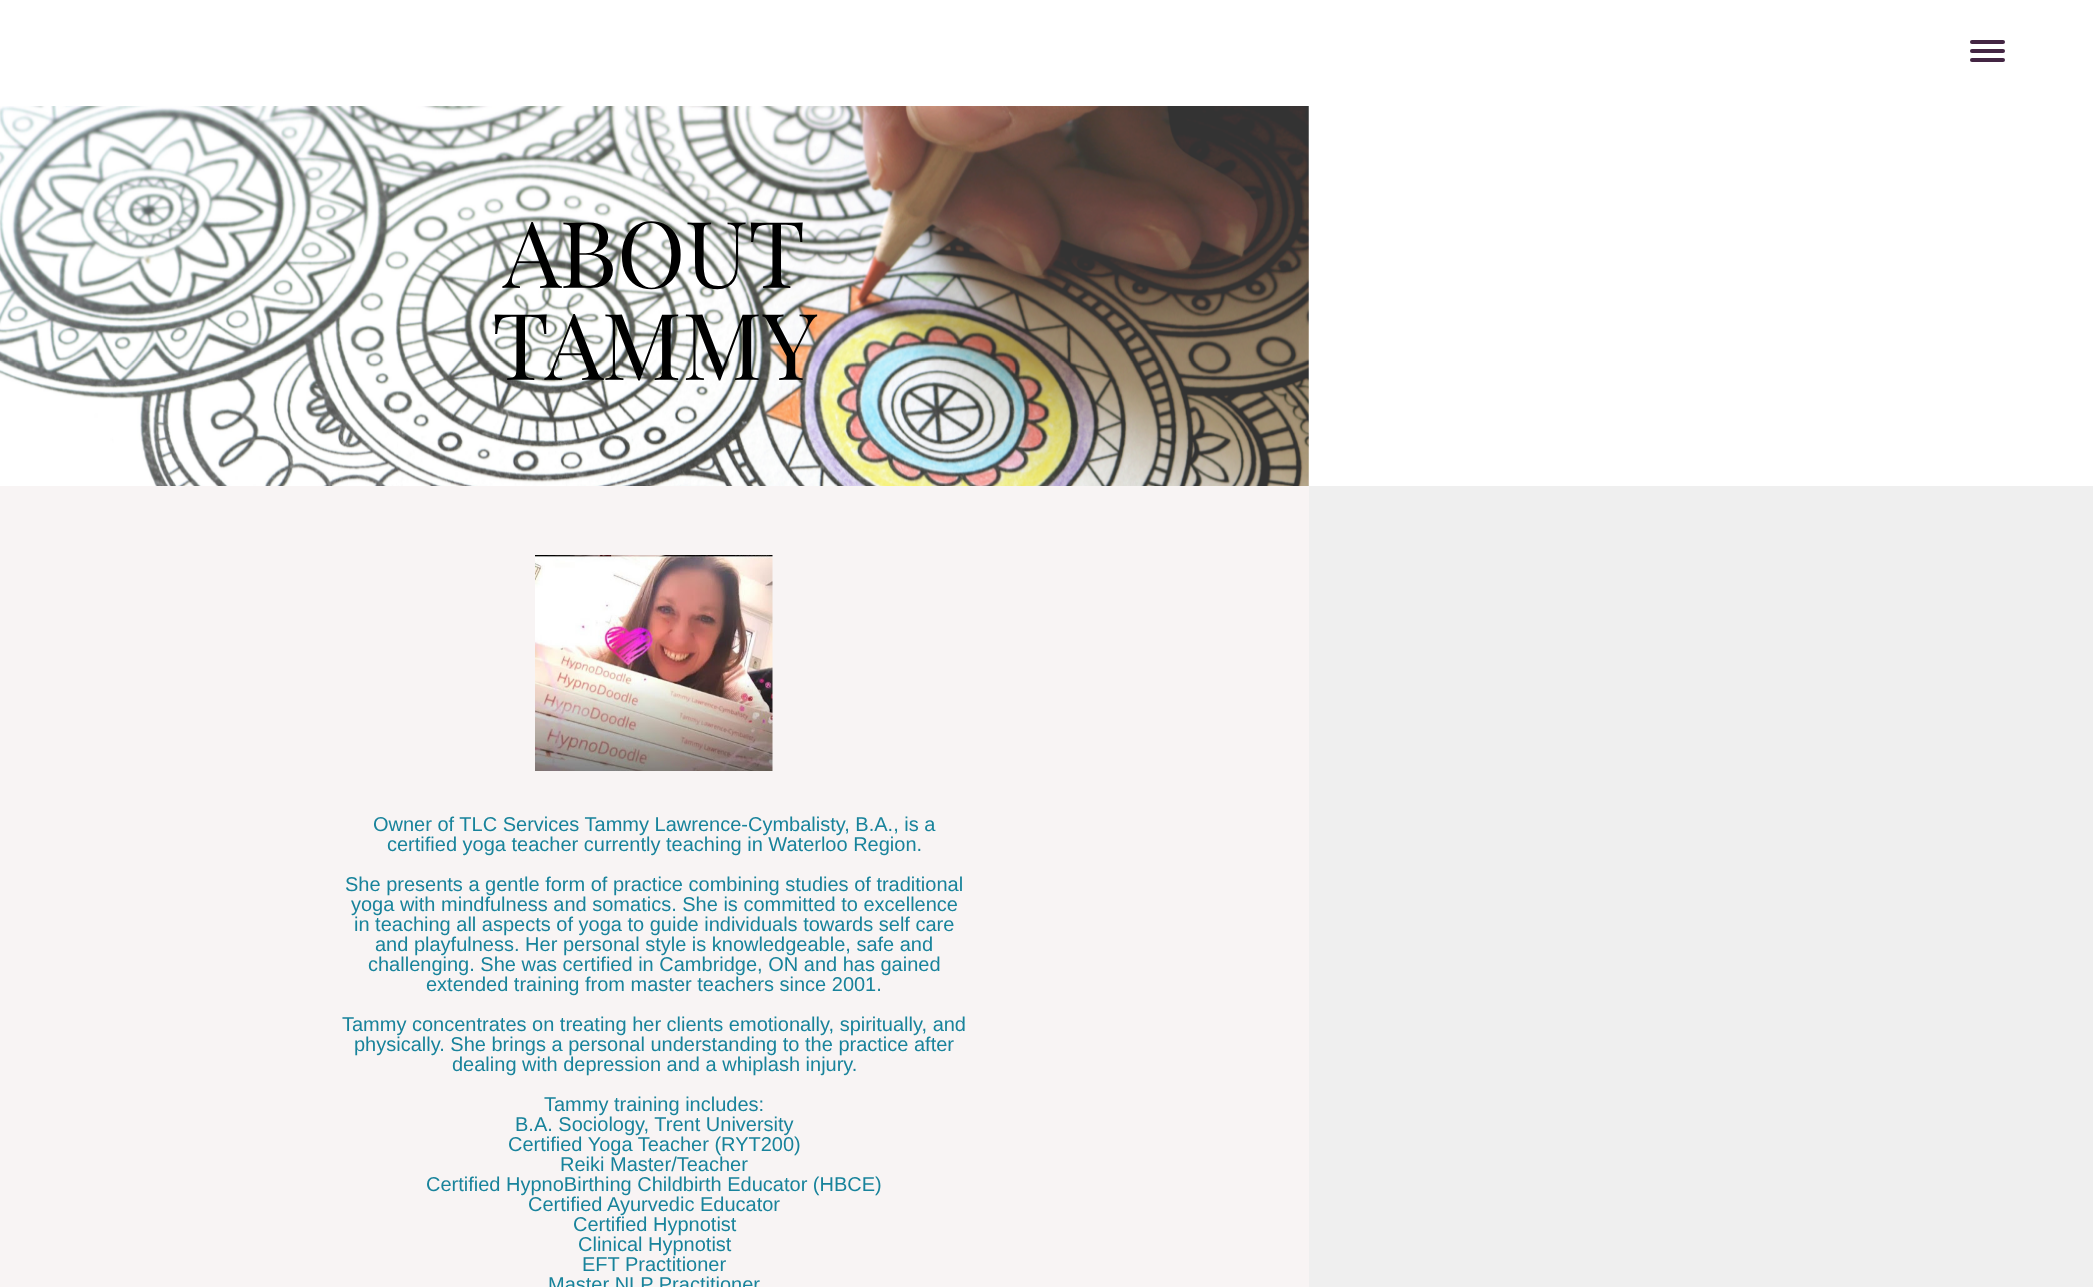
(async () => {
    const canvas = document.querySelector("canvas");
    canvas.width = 2093;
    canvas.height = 1287;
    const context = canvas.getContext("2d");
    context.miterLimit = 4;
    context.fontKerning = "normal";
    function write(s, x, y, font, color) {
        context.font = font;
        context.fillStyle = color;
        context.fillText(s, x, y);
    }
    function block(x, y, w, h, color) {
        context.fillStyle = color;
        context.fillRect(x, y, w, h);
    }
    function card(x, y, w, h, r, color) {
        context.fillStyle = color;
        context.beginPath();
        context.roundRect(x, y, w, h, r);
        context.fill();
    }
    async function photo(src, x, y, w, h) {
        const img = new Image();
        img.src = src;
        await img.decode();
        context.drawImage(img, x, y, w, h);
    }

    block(0, 0, 2093, 1287, "rgb(255, 255, 255)");
    card(1970, 49, 35, 4, 2, "rgb(67, 37, 67)");
    card(1970, 40, 35, 4, 2, "rgb(67, 37, 67)");
    card(1970, 58, 35, 4, 2, "rgb(67, 37, 67)");
    await photo("media/1.png", 0, 106, 1309, 380);
    write("ABOUT", 503, 288, "92.5px Playfair Display", "rgb(0, 0, 0)");
    write("TAMMY", 492, 380, "92.5px Playfair Display", "rgb(0, 0, 0)");
    block(1309, 486, 784, 801, "rgb(239, 239, 239)");
    block(0, 486, 1309, 801, "rgb(248, 244, 244)");
    await photo("media/2.png", 535, 555, 238, 216);
    write("Owner of TLC Services Tammy Lawrence-Cymbalisty, B.A., is a", 373, 831, "20px Liberation Sans", "rgb(24, 131, 155)");
    write("certified yoga teacher currently teaching in Waterloo Region.", 387, 851, "20px Liberation Sans", "rgb(24, 131, 155)");
    write("She presents a gentle form of practice combining studies of traditional", 345, 891, "20px Liberation Sans", "rgb(24, 131, 155)");
    write("yoga with mindfulness and somatics. She is committed to excellence", 351, 911, "20px Liberation Sans", "rgb(24, 131, 155)");
    write("in teaching all aspects of yoga to guide individuals towards self care", 354, 931, "20px Liberation Sans", "rgb(24, 131, 155)");
    write("and playfulness. Her personal style is knowledgeable, safe and", 375, 951, "20px Liberation Sans", "rgb(24, 131, 155)");
    write("challenging. She was certified in Cambridge, ON and has gained", 368, 971, "20px Liberation Sans", "rgb(24, 131, 155)");
    write("extended training from master teachers since 2001.", 426, 991, "20px Liberation Sans", "rgb(24, 131, 155)");
    write("Tammy concentrates on treating her clients emotionally, spiritually, and", 342, 1031, "20px Liberation Sans", "rgb(24, 131, 155)");
    write("physically. She brings a personal understanding to the practice after", 354, 1051, "20px Liberation Sans", "rgb(24, 131, 155)");
    write("dealing with depression and a whiplash injury.", 452, 1071, "20px Liberation Sans", "rgb(24, 131, 155)");
    write("Tammy training includes:", 544, 1111, "20px Liberation Sans", "rgb(24, 131, 155)");
    write("B.A. Sociology, Trent University", 515, 1131, "20px Liberation Sans", "rgb(24, 131, 155)");
    write("Certified Yoga Teacher (RYT200)", 508, 1151, "20px Liberation Sans", "rgb(24, 131, 155)");
    write("Reiki Master/Teacher", 560, 1171, "20px Liberation Sans", "rgb(24, 131, 155)");
    write("Certified HypnoBirthing Childbirth Educator (HBCE)", 426, 1191, "20px Liberation Sans", "rgb(24, 131, 155)");
    write("Certified Ayurvedic Educator", 528, 1211, "20px Liberation Sans", "rgb(24, 131, 155)");
    write("Certified Hypnotist", 573, 1231, "20px Liberation Sans", "rgb(24, 131, 155)");
    write("Clinical Hypnotist", 578, 1251, "20px Liberation Sans", "rgb(24, 131, 155)");
    write("EFT Practitioner", 582, 1271, "20px Liberation Sans", "rgb(24, 131, 155)");
    write("Master NLP Practitioner", 548, 1291, "20px Liberation Sans", "rgb(24, 131, 155)");
})();
